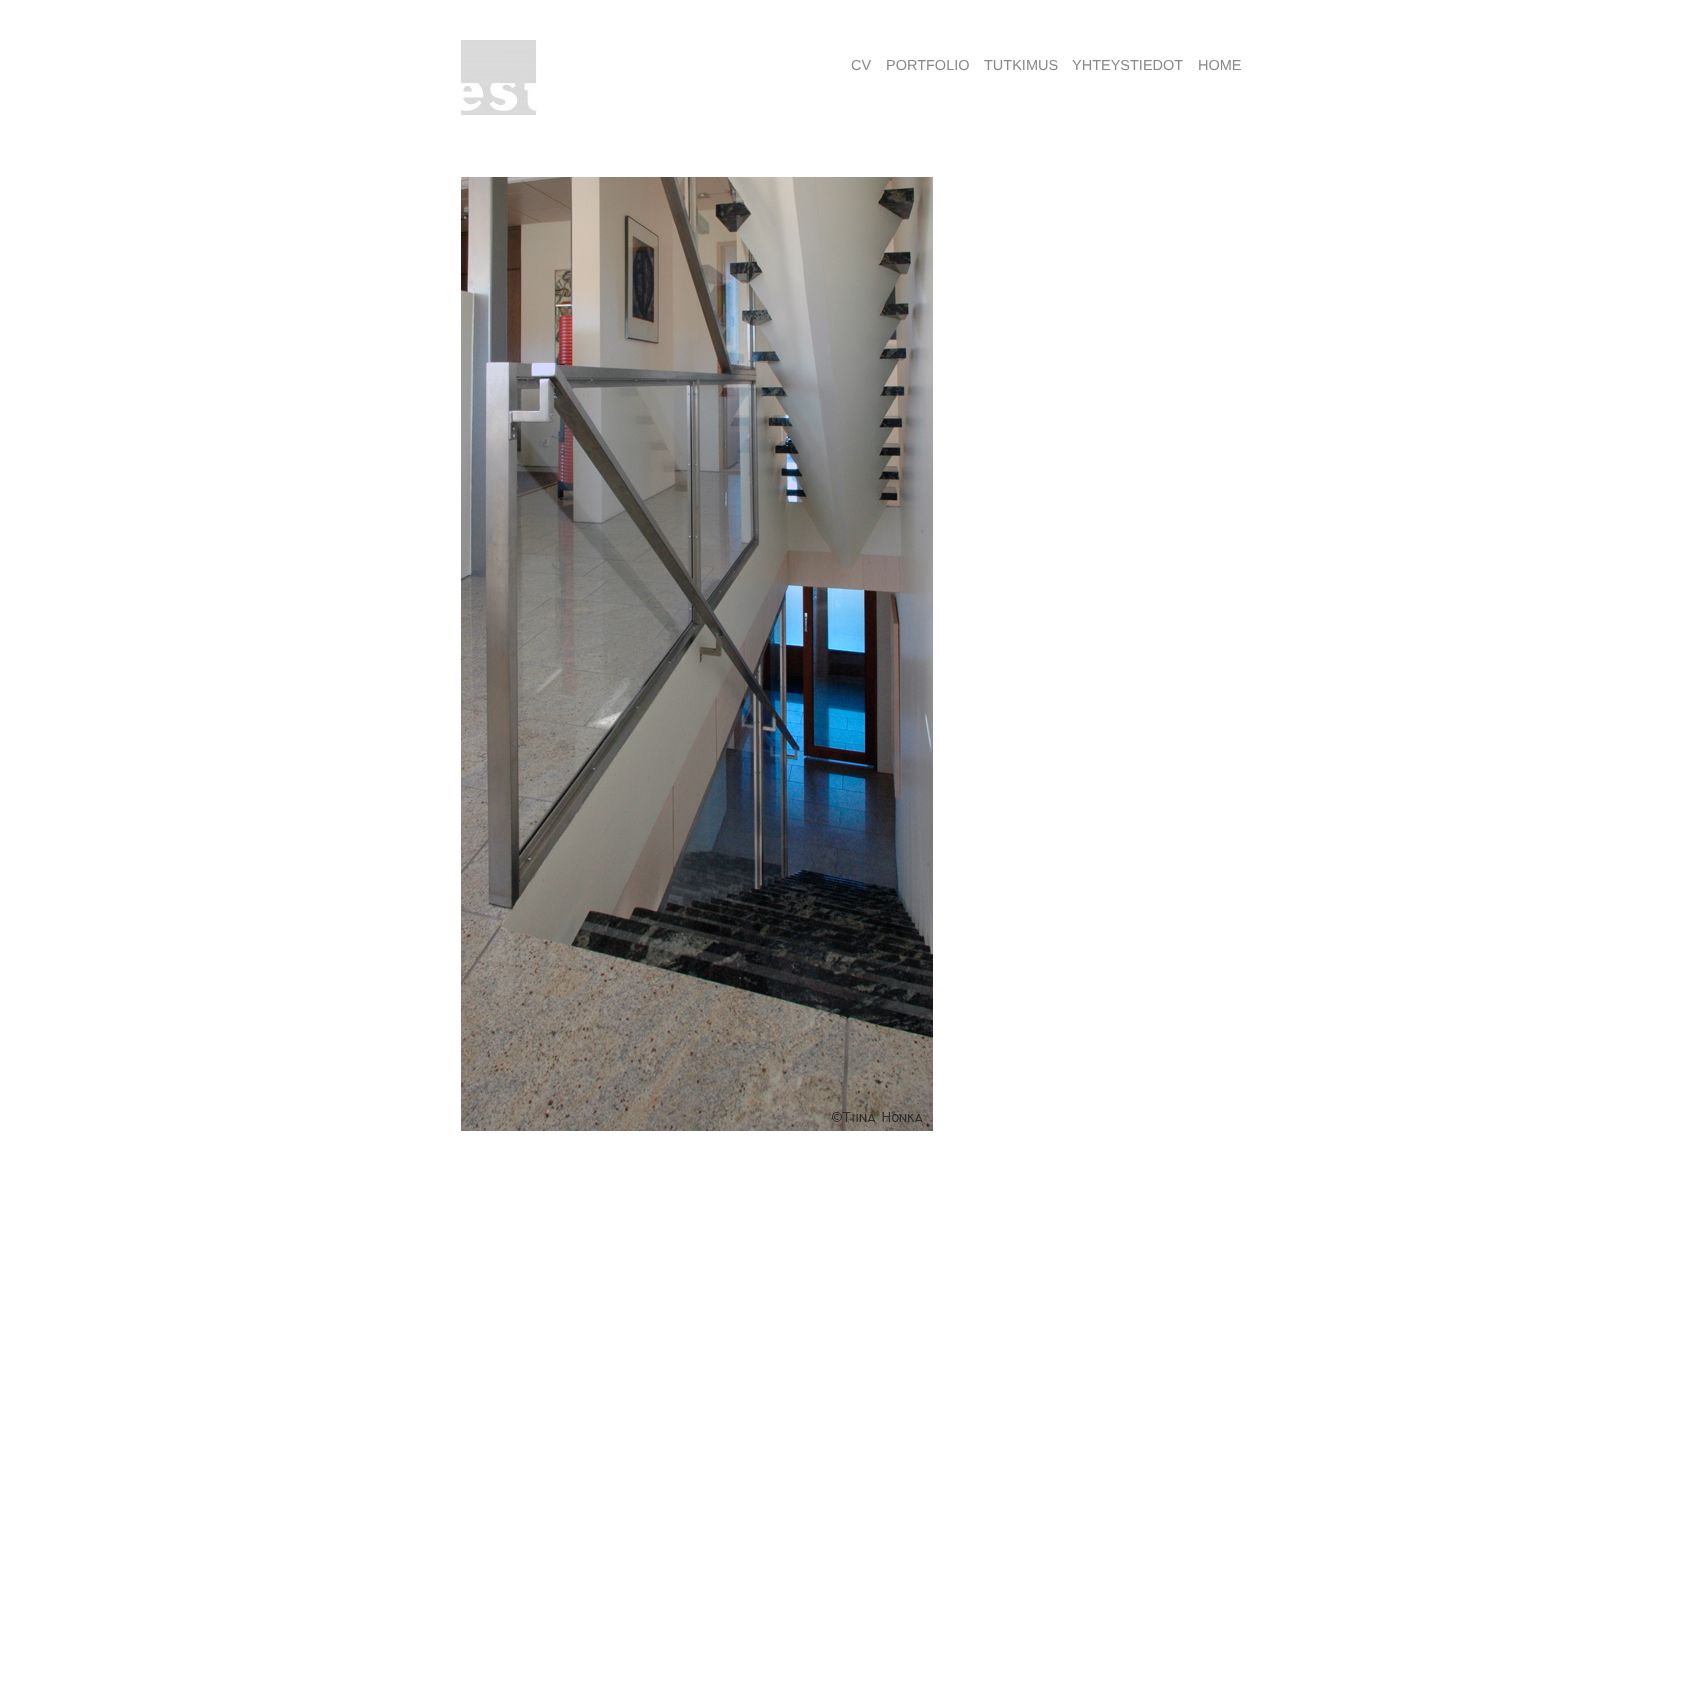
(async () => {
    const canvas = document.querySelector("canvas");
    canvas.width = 1702;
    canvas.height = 1684;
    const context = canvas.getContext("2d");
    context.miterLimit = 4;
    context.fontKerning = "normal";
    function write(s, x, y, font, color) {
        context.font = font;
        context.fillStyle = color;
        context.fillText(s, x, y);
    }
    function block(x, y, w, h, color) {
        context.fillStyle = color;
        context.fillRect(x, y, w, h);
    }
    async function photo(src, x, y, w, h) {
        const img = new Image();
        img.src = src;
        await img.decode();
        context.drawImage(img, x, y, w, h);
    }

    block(0, 0, 1702, 1684, "rgb(255, 255, 255)");
    await photo("media/1.png", 461, 40, 76, 77);
    write("CV", 851, 70, "14.5px Liberation Sans", "rgb(136, 136, 136)");
    write("PORTFOLIO", 886, 70, "14.5px Liberation Sans", "rgb(136, 136, 136)");
    write("TUTKIMUS", 984, 70, "14.5px Liberation Sans", "rgb(136, 136, 136)");
    write("YHTEYSTIEDOT", 1072, 70, "14.5px Liberation Sans", "rgb(136, 136, 136)");
    write("HOME", 1198, 70, "14.5px Liberation Sans", "rgb(136, 136, 136)");
    await photo("media/2.png", 461, 177, 472, 954);
})();
